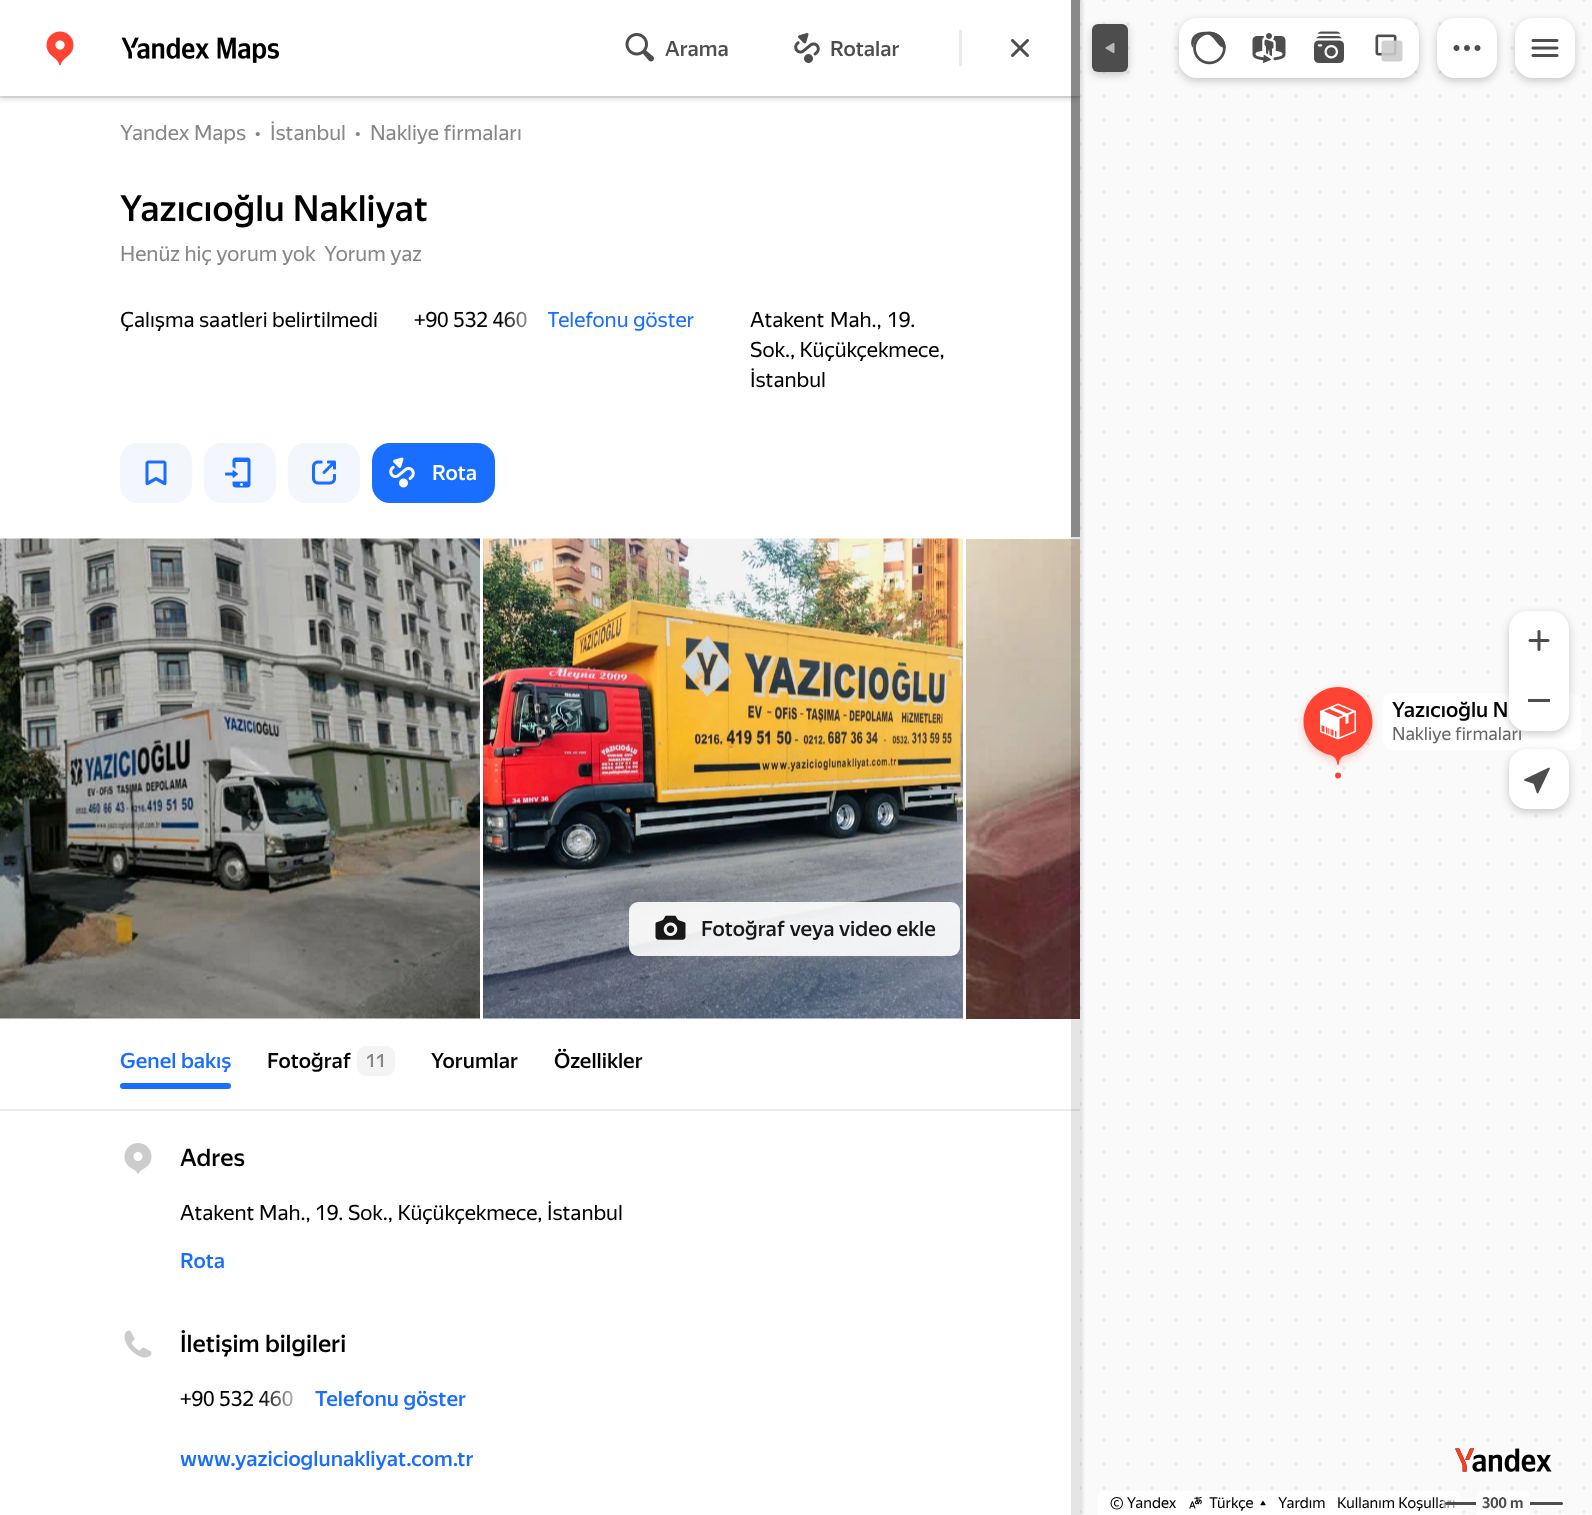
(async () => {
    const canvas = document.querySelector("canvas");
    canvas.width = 1592;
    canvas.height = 1515;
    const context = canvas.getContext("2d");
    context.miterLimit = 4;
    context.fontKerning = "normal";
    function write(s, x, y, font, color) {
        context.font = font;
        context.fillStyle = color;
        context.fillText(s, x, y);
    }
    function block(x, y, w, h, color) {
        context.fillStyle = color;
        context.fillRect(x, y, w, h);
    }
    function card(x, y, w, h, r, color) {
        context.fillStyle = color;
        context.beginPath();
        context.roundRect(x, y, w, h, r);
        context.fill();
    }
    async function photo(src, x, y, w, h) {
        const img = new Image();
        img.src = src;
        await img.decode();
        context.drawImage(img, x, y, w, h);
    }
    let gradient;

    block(0, 0, 1592, 1515, "rgb(255, 255, 255)");
    await photo("media/1.png", 1080, 0, 512, 1515);
    context.fillStyle = "rgba(0, 0, 0, 0.1)";
    context.filter = "blur(1.5px)";
    context.beginPath();
    context.rect(3, 0, 1080, 1515);
    context.fill();
    context.filter = "none";
    block(1, 98, 1079, 1417, "rgb(255, 255, 255)");
    block(0, 96, 1080, 2, "rgb(235, 235, 235)");
    context.save();
    context.beginPath();
    context.rect(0, 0, 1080, 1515);
    context.clip();
    context.fillStyle = "rgba(0, 0, 0, 0.2)";
    context.filter = "blur(3px)";
    context.beginPath();
    context.rect(0, 92, 1080, 6);
    context.fill();
    context.filter = "none";
    context.restore();
    context.fillStyle = "rgba(0, 0, 0, 0.2)";
    context.filter = "blur(4.5px)";
    context.beginPath();
    context.roundRect(1092, 27, 36, 48, 6);
    context.fill();
    context.filter = "none";
    block(0, 0, 1080, 96, "rgb(255, 255, 255)");
    await photo("media/2.png", 46, 31, 28, 35);
    await photo("media/3.png", 121, 37, 158, 26);
    await photo("media/4.png", 625, 33, 29, 29);
    write("Arama", 665, 56, "500 21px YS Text", "rgb(77, 77, 77)");
    await photo("media/5.png", 794, 33, 26, 30);
    write("Rotalar", 830, 56, "500 21px YS Text", "rgb(77, 77, 77)");
    block(959, 30, 3, 36, "rgb(235, 235, 235)");
    await photo("media/6.png", 1011, 39, 18, 18);
    write("Yandex Maps", 120, 140, "21px YS Text", "rgb(135, 135, 135)");
    write("•", 255, 140, "21px YS Text", "rgb(135, 135, 135)");
    write("İstanbul", 270, 140, "21px YS Text", "rgb(135, 135, 135)");
    write("•", 355, 140, "21px YS Text", "rgb(135, 135, 135)");
    write("Nakliye firmaları", 370, 140, "21px YS Text", "rgb(135, 135, 135)");
    write("Yazıcıoğlu Nakliyat", 120, 221, "500 36px YS Text", "rgb(0, 0, 0)");
    write("Henüz hiç yorum yok", 120, 261, "21px YS Text", "rgb(135, 135, 135)");
    write("Yorum yaz", 324, 261, "21px YS Text", "rgb(135, 135, 135)");
    write("Çalışma saatleri belirtilmedi", 120, 327, "21px YS Text", "rgb(0, 0, 0)");
    write("+90 532 460", 414, 327, "21px YS Text", "rgb(0, 0, 0)");
    write("Telefonu göster", 547, 327, "21px YS Text", "rgb(25, 109, 255)");
    gradient = context.createLinearGradient(500, 320, 548, 320);
    gradient.addColorStop(0, "rgba(255, 255, 255, 0)");
    gradient.addColorStop(1, "rgb(255, 255, 255)");
    context.fillStyle = gradient;
    context.fillRect(501, 311, 47, 17);
    context.wordSpacing = "1px";
    write("Atakent Mah., 19.", 750, 327, "21px YS Text", "rgb(0, 0, 0)");
    context.wordSpacing = "0px";
    write("Sok., Küçükçekmece,", 750, 357, "21px YS Text", "rgb(0, 0, 0)");
    write("İstanbul", 750, 387, "21px YS Text", "rgb(0, 0, 0)");
    card(120, 443, 72, 60, 18, "rgb(243, 246, 252)");
    await photo("media/7.png", 145, 460, 22, 26);
    card(204, 443, 72, 60, 18, "rgb(243, 246, 252)");
    await photo("media/8.png", 225, 457, 26, 31);
    card(288, 443, 72, 60, 18, "rgb(243, 246, 252)");
    await photo("media/9.png", 312, 460, 24, 25);
    card(372, 443, 123, 60, 18, "rgb(25, 109, 255)");
    await photo("media/10.png", 389, 457, 26, 31);
    write("Rota", 432, 480, "500 21px YS Text", "rgb(255, 255, 255)");
    await photo("media/11.png", 0, 538, 480, 481);
    await photo("media/12.png", 483, 538, 480, 481);
    await photo("media/13.png", 966, 539, 114, 480);
    card(629, 902, 331, 54, 9, "rgba(255, 255, 255, 0.9)");
    await photo("media/14.png", 655, 915, 31, 25);
    write("Fotoğraf veya video ekle", 701, 936, "500 21px YS Text", "rgb(24, 24, 24)");
    write("Genel bakış", 120, 1068, "500 21px YS Text", "rgb(25, 109, 255)");
    write("Fotoğraf", 267, 1068, "500 21px YS Text", "rgb(0, 0, 0)");
    card(357, 1046, 38, 30, 9, "rgb(244, 244, 244)");
    write("11", 366, 1067, "500 18px YS Text", "rgb(135, 135, 135)");
    write("Yorumlar", 431, 1068, "500 21px YS Text", "rgb(0, 0, 0)");
    write("Özellikler", 554, 1068, "500 21px YS Text", "rgb(0, 0, 0)");
    card(120, 1083, 111, 6, 3, "rgb(25, 109, 255)");
    block(0, 1109, 1080, 2, "rgb(235, 235, 235)");
    await photo("media/15.png", 124, 1143, 28, 31);
    write("Adres", 180, 1166, "500 24px YS Text", "rgb(0, 0, 0)");
    write("Atakent Mah., 19. Sok., Küçükçekmece, İstanbul", 180, 1220, "21px YS Text", "rgb(0, 0, 0)");
    write("Rota", 180, 1268, "500 21px YS Text", "rgb(25, 109, 255)");
    await photo("media/16.png", 124, 1330, 28, 28);
    write("İletişim bilgileri", 180, 1352, "500 24px YS Text", "rgb(0, 0, 0)");
    write("+90 532 460", 180, 1406, "21px YS Text", "rgb(0, 0, 0)");
    gradient = context.createLinearGradient(260, 1398, 308, 1398);
    gradient.addColorStop(0, "rgba(255, 255, 255, 0)");
    gradient.addColorStop(1, "rgb(255, 255, 255)");
    context.fillStyle = gradient;
    context.fillRect(262, 1390, 34, 17);
    write("Telefonu göster", 315, 1406, "500 21px YS Text", "rgb(25, 109, 255)");
    write("www.yazicioglunakliyat.com.tr", 180, 1466, "500 21px YS Text", "rgb(25, 109, 255)");
    block(1071, 0, 9, 1515, "rgba(0, 0, 0, 0.1)");
    block(1071, 0, 9, 537, "rgba(0, 0, 0, 0.4)");
    card(1092, 24, 36, 48, 6, "rgb(77, 77, 77)");
    await photo("media/17.png", 1105, 42, 10, 12);
    context.fillStyle = "rgba(0, 0, 0, 0.2)";
    context.filter = "blur(4.5px)";
    context.beginPath();
    context.roundRect(1179, 21, 240, 60, 18);
    context.fill();
    context.filter = "none";
    context.fillStyle = "rgb(255, 255, 255)";
    context.beginPath();
    context.roundRect(1179, 18, 60, 60, [18, 0, 0, 18]);
    context.fill();
    await photo("media/18.png", 1191, 31, 35, 34);
    block(1239, 18, 120, 60, "rgb(255, 255, 255)");
    await photo("media/19.png", 1252, 33, 34, 30);
    context.beginPath();
    context.roundRect(1359, 18, 60, 60, [0, 18, 18, 0]);
    context.fill();
    await photo("media/20.png", 1375, 34, 28, 28);
    await photo("media/21.png", 1314, 31, 30, 32);
    context.fillStyle = "rgba(0, 0, 0, 0.2)";
    context.filter = "blur(4.5px)";
    context.beginPath();
    context.roundRect(1437, 21, 60, 60, 18);
    context.fill();
    context.filter = "none";
    card(1437, 18, 60, 60, 18, "rgb(255, 255, 255)");
    await photo("media/22.png", 1453, 45, 28, 6);
    context.fillStyle = "rgba(0, 0, 0, 0.2)";
    context.filter = "blur(4.5px)";
    context.beginPath();
    context.roundRect(1515, 21, 60, 60, 18);
    context.fill();
    context.filter = "none";
    card(1515, 18, 60, 60, 18, "rgb(255, 255, 255)");
    await photo("media/23.png", 1531, 39, 28, 18);
    card(1383, 693, 198, 57, 9, "rgba(255, 255, 255, 0.9)");
    context.fillStyle = "rgba(0, 0, 0, 0.2)";
    context.filter = "blur(4.5px)";
    context.beginPath();
    context.roundRect(1509, 614, 60, 120, 18);
    context.fill();
    context.filter = "none";
    context.fillStyle = "rgb(255, 255, 255)";
    context.beginPath();
    context.roundRect(1509, 611, 60, 60, [18, 18, 0, 0]);
    context.fill();
    await photo("media/24.png", 1528, 630, 22, 21);
    write("Nakliye firmaları", 1392, 740, "18px YS Text", "rgb(102, 102, 102)");
    context.fillStyle = "rgb(255, 255, 255)";
    context.beginPath();
    context.roundRect(1509, 671, 60, 60, [0, 0, 18, 18]);
    context.fill();
    block(1528, 699, 22, 3, "rgb(77, 77, 77)");
    context.fillStyle = "rgba(0, 0, 0, 0.2)";
    context.filter = "blur(4.5px)";
    context.beginPath();
    context.roundRect(1509, 752, 60, 60, 18);
    context.fill();
    context.filter = "none";
    card(1509, 749, 60, 60, 18, "rgb(255, 255, 255)");
    await photo("media/25.png", 1524, 767, 26, 27);
    await photo("media/26.png", 1455, 1448, 97, 24);
    context.beginPath();
    context.roundRect(1098, 1491, 363, 24, [6, 6, 0, 0]);
    context.fill();
    write("© Yandex", 1110, 1508, "15px YS Text", "rgb(0, 0, 0)");
    await photo("media/27.png", 1189, 1496, 13, 13);
    write("Türkçe", 1209, 1508, "15px YS Text", "rgb(0, 0, 0)");
    await photo("media/28.png", 1260, 1500, 6, 6);
    write("Yardım", 1278, 1508, "15px YS Text", "rgb(0, 0, 0)");
    write("Kullanım Koşulları", 1337, 1508, "15px YS Text", "rgb(0, 0, 0)");
    card(1442, 1499, 124, 9, 4.5, "rgba(255, 255, 255, 0.6)");
    card(1445, 1502, 118, 3, 1.5, "rgb(77, 77, 77)");
    context.fillStyle = "rgb(255, 255, 255)";
    context.beginPath();
    context.roundRect(1476, 1491, 54, 24, [6, 6, 0, 0]);
    context.fill();
    write("300 m", 1482, 1508, "bold 15px YS Text", "rgb(77, 77, 77)");
    await photo("media/29.png", 1298, 684, 80, 97);
    await photo("media/30.png", 1320, 703, 36, 37);
    write("Yazıcıoğlu N", 1392, 717, "500 21px YS Text", "rgb(0, 0, 0)");
})();
